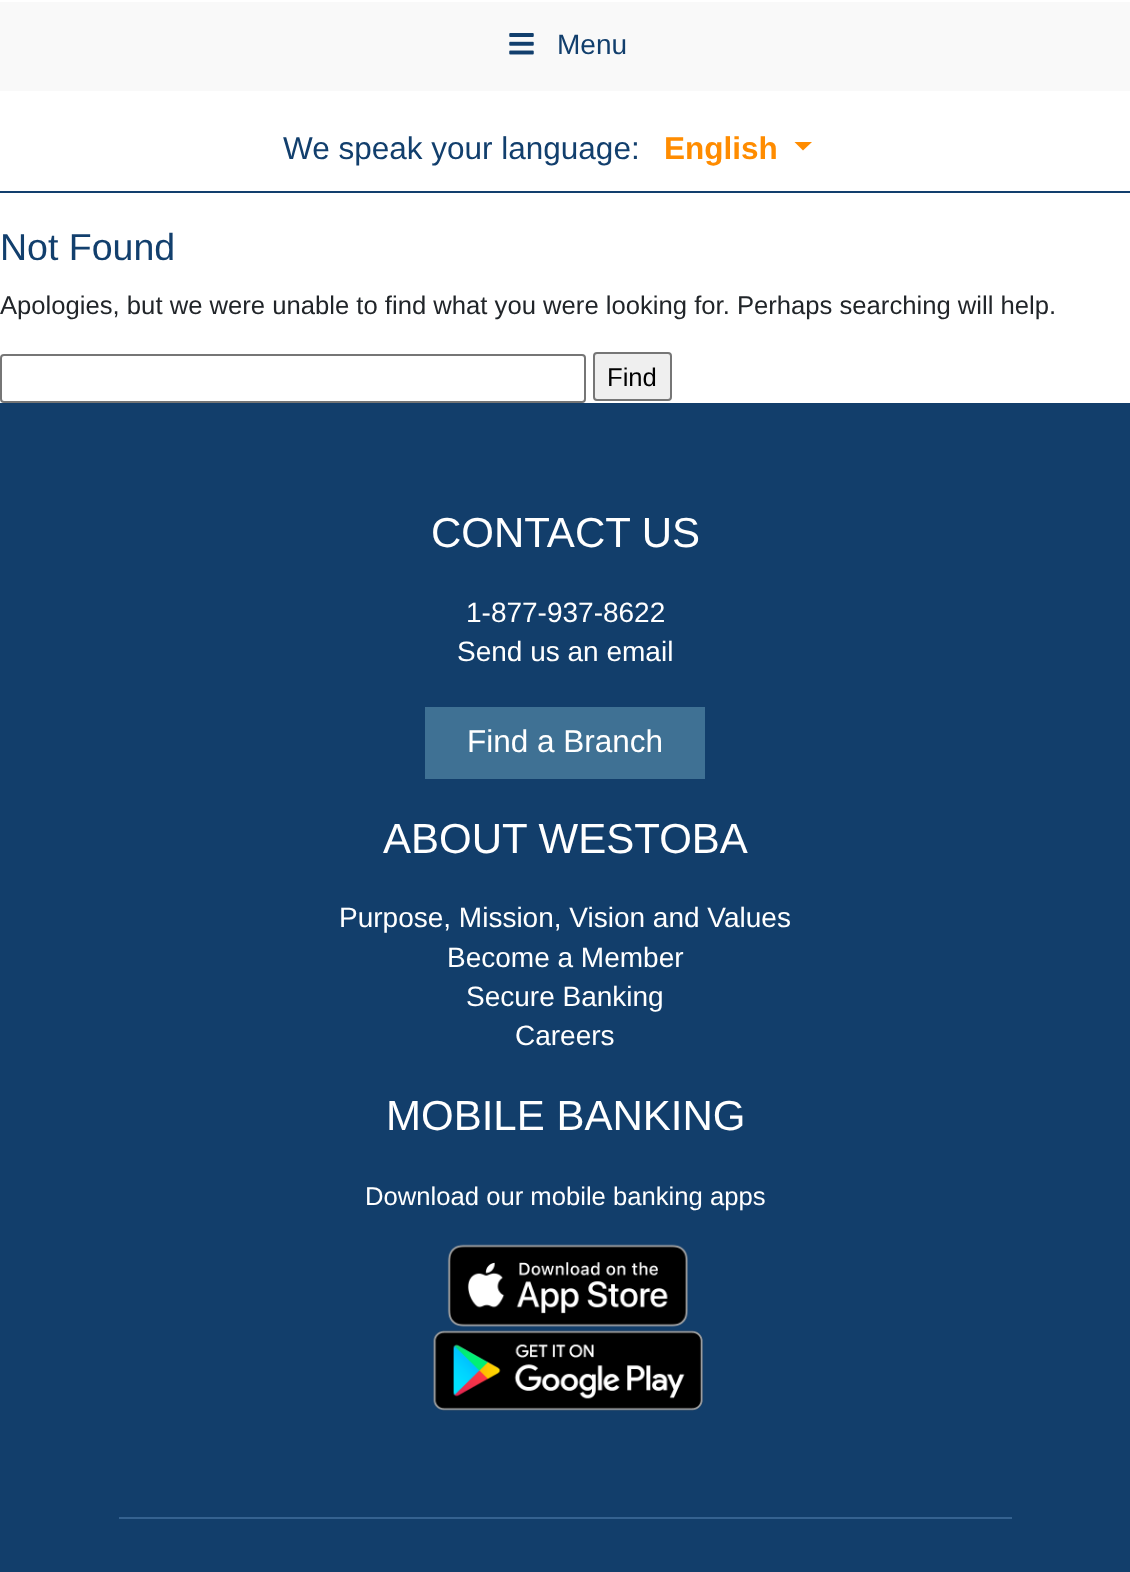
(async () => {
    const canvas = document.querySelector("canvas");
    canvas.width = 1130;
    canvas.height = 1572;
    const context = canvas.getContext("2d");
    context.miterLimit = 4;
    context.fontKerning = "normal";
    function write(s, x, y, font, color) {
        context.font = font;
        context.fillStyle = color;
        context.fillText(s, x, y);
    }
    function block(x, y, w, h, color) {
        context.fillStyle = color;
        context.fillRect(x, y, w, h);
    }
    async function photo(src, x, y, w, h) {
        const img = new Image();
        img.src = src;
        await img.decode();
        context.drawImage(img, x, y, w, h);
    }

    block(0, 0, 1130, 1572, "rgb(255, 255, 255)");
    block(0, 2, 1130, 89, "rgb(249, 249, 249)");
    await photo("media/1.png", 509, 33, 25, 22);
    write("Menu", 557, 54, "28px Liberation Sans", "rgb(18, 63, 109)");
    block(0, 191, 1130, 2, "rgb(18, 63, 109)");
    write("We speak your language:", 283, 159, "31.5px Liberation Sans", "rgb(18, 63, 109)");
    write("English", 664, 159, "bold 31.5px Liberation Sans", "rgb(255, 140, 0)");
    context.beginPath();
    context.moveTo(794.5, 142);
    context.lineTo(812, 142);
    context.lineTo(803, 150.5);
    context.closePath();
    context.fill();
    write("Not Found", 0, 260, "37.5px Liberation Sans", "rgb(18, 63, 109)");
    write("Apologies, but we were unable to find what you were looking for. Perhaps searching will help.", 0, 314, "25.65px Liberation Sans", "rgb(33, 37, 41)");
    context.beginPath();
    context.roundRect(1, 355, 584, 47, 3);
    context.strokeStyle = "rgb(118, 118, 118)";
    context.lineWidth = 2;
    context.stroke();
    context.fillStyle = "rgb(239, 239, 239)";
    context.beginPath();
    context.roundRect(594, 353, 77, 47, 3);
    context.fill();
    context.stroke();
    write("Find", 607, 386, "25.65px Liberation Sans", "rgb(0, 0, 0)");
    block(0, 403, 1130, 1169, "rgb(18, 62, 107)");
    write("CONTACT US", 431, 547, "42px Liberation Sans", "rgb(255, 255, 255)");
    write("1-877-937-8622", 466, 622, "28px Liberation Sans", "rgb(255, 255, 255)");
    write("Send us an email", 457, 661, "28px Liberation Sans", "rgb(255, 255, 255)");
    block(425, 707, 280, 72, "rgb(63, 113, 148)");
    write("Find a Branch", 467, 752, "31.5px Liberation Sans", "rgb(255, 255, 255)");
    write("ABOUT WESTOBA", 383, 853, "42px Liberation Sans", "rgb(255, 255, 255)");
    write("Purpose, Mission, Vision and Values", 339, 927, "28px Liberation Sans", "rgb(255, 255, 255)");
    write("Become a Member", 447, 967, "28px Liberation Sans", "rgb(255, 255, 255)");
    write("Secure Banking", 466, 1006, "28px Liberation Sans", "rgb(255, 255, 255)");
    write("Careers", 515, 1045, "28px Liberation Sans", "rgb(255, 255, 255)");
    write("MOBILE BANKING", 386, 1130, "42px Liberation Sans", "rgb(255, 255, 255)");
    write("Download our mobile banking apps", 365, 1205, "25.65px Liberation Sans", "rgb(255, 255, 255)");
    await photo("media/2.png", 447, 1244, 241, 83);
    await photo("media/3.png", 433, 1330, 270, 81);
    block(119, 1517, 893, 2, "rgb(53, 98, 144)");
})();
